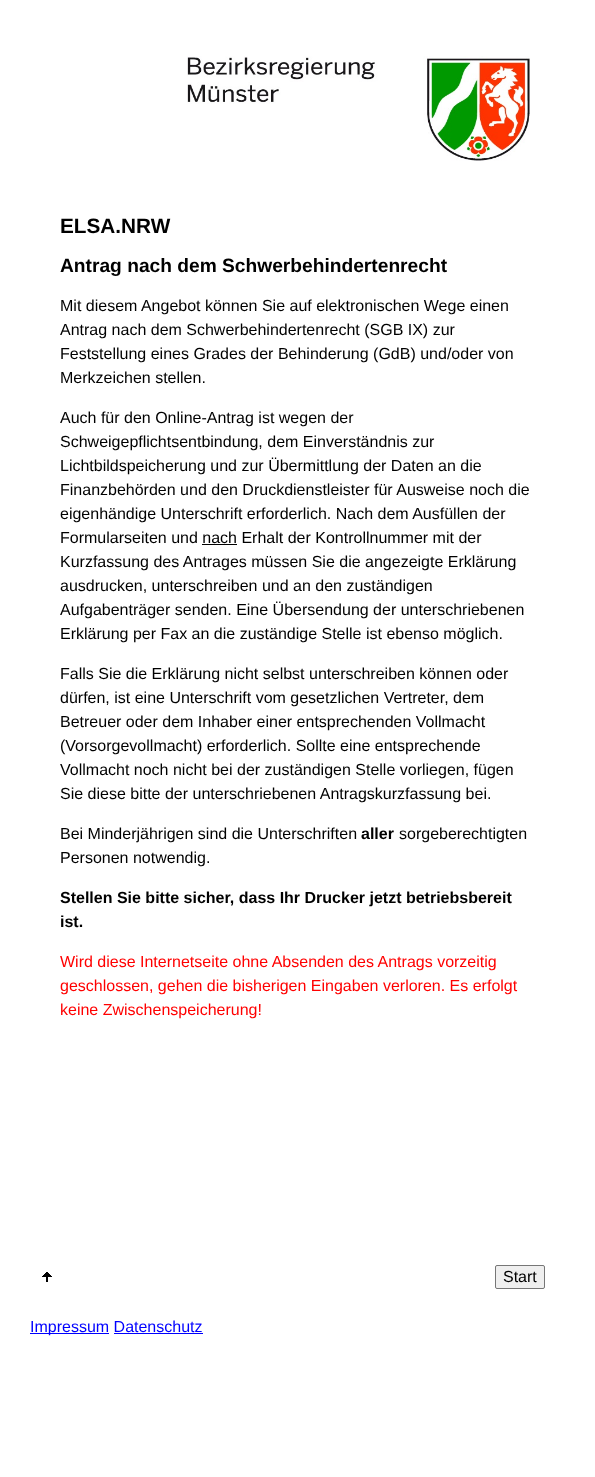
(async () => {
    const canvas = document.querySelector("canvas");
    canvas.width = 595;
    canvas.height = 1477;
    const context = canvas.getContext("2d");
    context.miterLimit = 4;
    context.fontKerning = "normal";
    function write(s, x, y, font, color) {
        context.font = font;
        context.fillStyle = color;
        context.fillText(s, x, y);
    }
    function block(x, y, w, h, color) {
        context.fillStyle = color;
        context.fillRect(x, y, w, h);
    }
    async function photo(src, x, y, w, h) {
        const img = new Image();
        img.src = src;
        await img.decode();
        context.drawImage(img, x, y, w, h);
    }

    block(0, 0, 595, 1477, "rgb(255, 255, 255)");
    await photo("media/1.png", 187, 56, 343, 105);
    write("ELSA.NRW", 60, 233, "bold 20.75px Liberation Sans", "rgb(0, 0, 0)");
    write("Antrag nach dem Schwerbehindertenrecht", 60, 272, "bold 19.2px Liberation Sans", "rgb(0, 0, 0)");
    write("Mit diesem Angebot können Sie auf elektronischen Wege einen", 60, 311, "16px Liberation Sans", "rgb(0, 0, 0)");
    write("Antrag nach dem Schwerbehindertenrecht (SGB IX) zur", 60, 335, "16px Liberation Sans", "rgb(0, 0, 0)");
    write("Feststellung eines Grades der Behinderung (GdB) und/oder von", 60, 359, "16px Liberation Sans", "rgb(0, 0, 0)");
    write("Merkzeichen stellen.", 60, 383, "16px Liberation Sans", "rgb(0, 0, 0)");
    write("Auch für den Online-Antrag ist wegen der", 60, 423, "16px Liberation Sans", "rgb(0, 0, 0)");
    write("Schweigepflichtsentbindung, dem Einverständnis zur", 60, 447, "16px Liberation Sans", "rgb(0, 0, 0)");
    write("Lichtbildspeicherung und zur Übermittlung der Daten an die", 60, 471, "16px Liberation Sans", "rgb(0, 0, 0)");
    write("Finanzbehörden und den Druckdienstleister für Ausweise noch die", 60, 495, "16px Liberation Sans", "rgb(0, 0, 0)");
    write("eigenhändige Unterschrift erforderlich. Nach dem Ausfüllen der", 60, 519, "16px Liberation Sans", "rgb(0, 0, 0)");
    write("Formularseiten und nach Erhalt der Kontrollnummer mit der", 60, 543, "16px Liberation Sans", "rgb(0, 0, 0)");
    block(202, 544, 35, 1, "rgb(0, 0, 0)");
    write("Kurzfassung des Antrages müssen Sie die angezeigte Erklärung", 60, 567, "16px Liberation Sans", "rgb(0, 0, 0)");
    write("ausdrucken, unterschreiben und an den zuständigen", 60, 591, "16px Liberation Sans", "rgb(0, 0, 0)");
    write("Aufgabenträger senden. Eine Übersendung der unterschriebenen", 60, 615, "16px Liberation Sans", "rgb(0, 0, 0)");
    write("Erklärung per Fax an die zuständige Stelle ist ebenso möglich.", 60, 639, "16px Liberation Sans", "rgb(0, 0, 0)");
    write("Falls Sie die Erklärung nicht selbst unterschreiben können oder", 60, 679, "16px Liberation Sans", "rgb(0, 0, 0)");
    write("dürfen, ist eine Unterschrift vom gesetzlichen Vertreter, dem", 60, 703, "16px Liberation Sans", "rgb(0, 0, 0)");
    write("Betreuer oder dem Inhaber einer entsprechenden Vollmacht", 60, 727, "16px Liberation Sans", "rgb(0, 0, 0)");
    write("(Vorsorgevollmacht) erforderlich. Sollte eine entsprechende", 60, 751, "16px Liberation Sans", "rgb(0, 0, 0)");
    write("Vollmacht noch nicht bei der zuständigen Stelle vorliegen, fügen", 60, 775, "16px Liberation Sans", "rgb(0, 0, 0)");
    write("Sie diese bitte der unterschriebenen Antragskurzfassung bei.", 60, 799, "16px Liberation Sans", "rgb(0, 0, 0)");
    write("Bei Minderjährigen sind die Unterschriften", 60, 839, "16px Liberation Sans", "rgb(0, 0, 0)");
    write("aller", 361, 839, "bold 16px Liberation Sans", "rgb(0, 0, 0)");
    write("sorgeberechtigten", 399, 839, "16px Liberation Sans", "rgb(0, 0, 0)");
    write("Personen notwendig.", 60, 863, "16px Liberation Sans", "rgb(0, 0, 0)");
    write("Stellen Sie bitte sicher, dass Ihr Drucker jetzt betriebsbereit", 60, 903, "bold 16px Liberation Sans", "rgb(0, 0, 0)");
    write("ist.", 60, 927, "bold 16px Liberation Sans", "rgb(0, 0, 0)");
    write("Wird diese Internetseite ohne Absenden des Antrags vorzeitig", 60, 967, "16px Liberation Sans", "rgb(255, 0, 0)");
    write("geschlossen, gehen die bisherigen Eingaben verloren. Es erfolgt", 60, 991, "16px Liberation Sans", "rgb(255, 0, 0)");
    write("keine Zwischenspeicherung!", 60, 1015, "16px Liberation Sans", "rgb(255, 0, 0)");
    await photo("media/2.png", 42, 1272, 10, 10);
    context.fillStyle = "rgb(239, 239, 239)";
    context.beginPath();
    context.roundRect(495.5, 1265.5, 49, 23, 1.5);
    context.fill();
    context.strokeStyle = "rgb(118, 118, 118)";
    context.stroke();
    write("Start", 503, 1282, "16px Liberation Sans", "rgb(0, 0, 0)");
    block(30, 1333, 79, 1, "rgb(0, 0, 255)");
    write("Impressum Datenschutz", 30, 1332, "16px Liberation Sans", "rgb(0, 0, 255)");
    block(114, 1333, 89, 1, "rgb(0, 0, 255)");
})();
